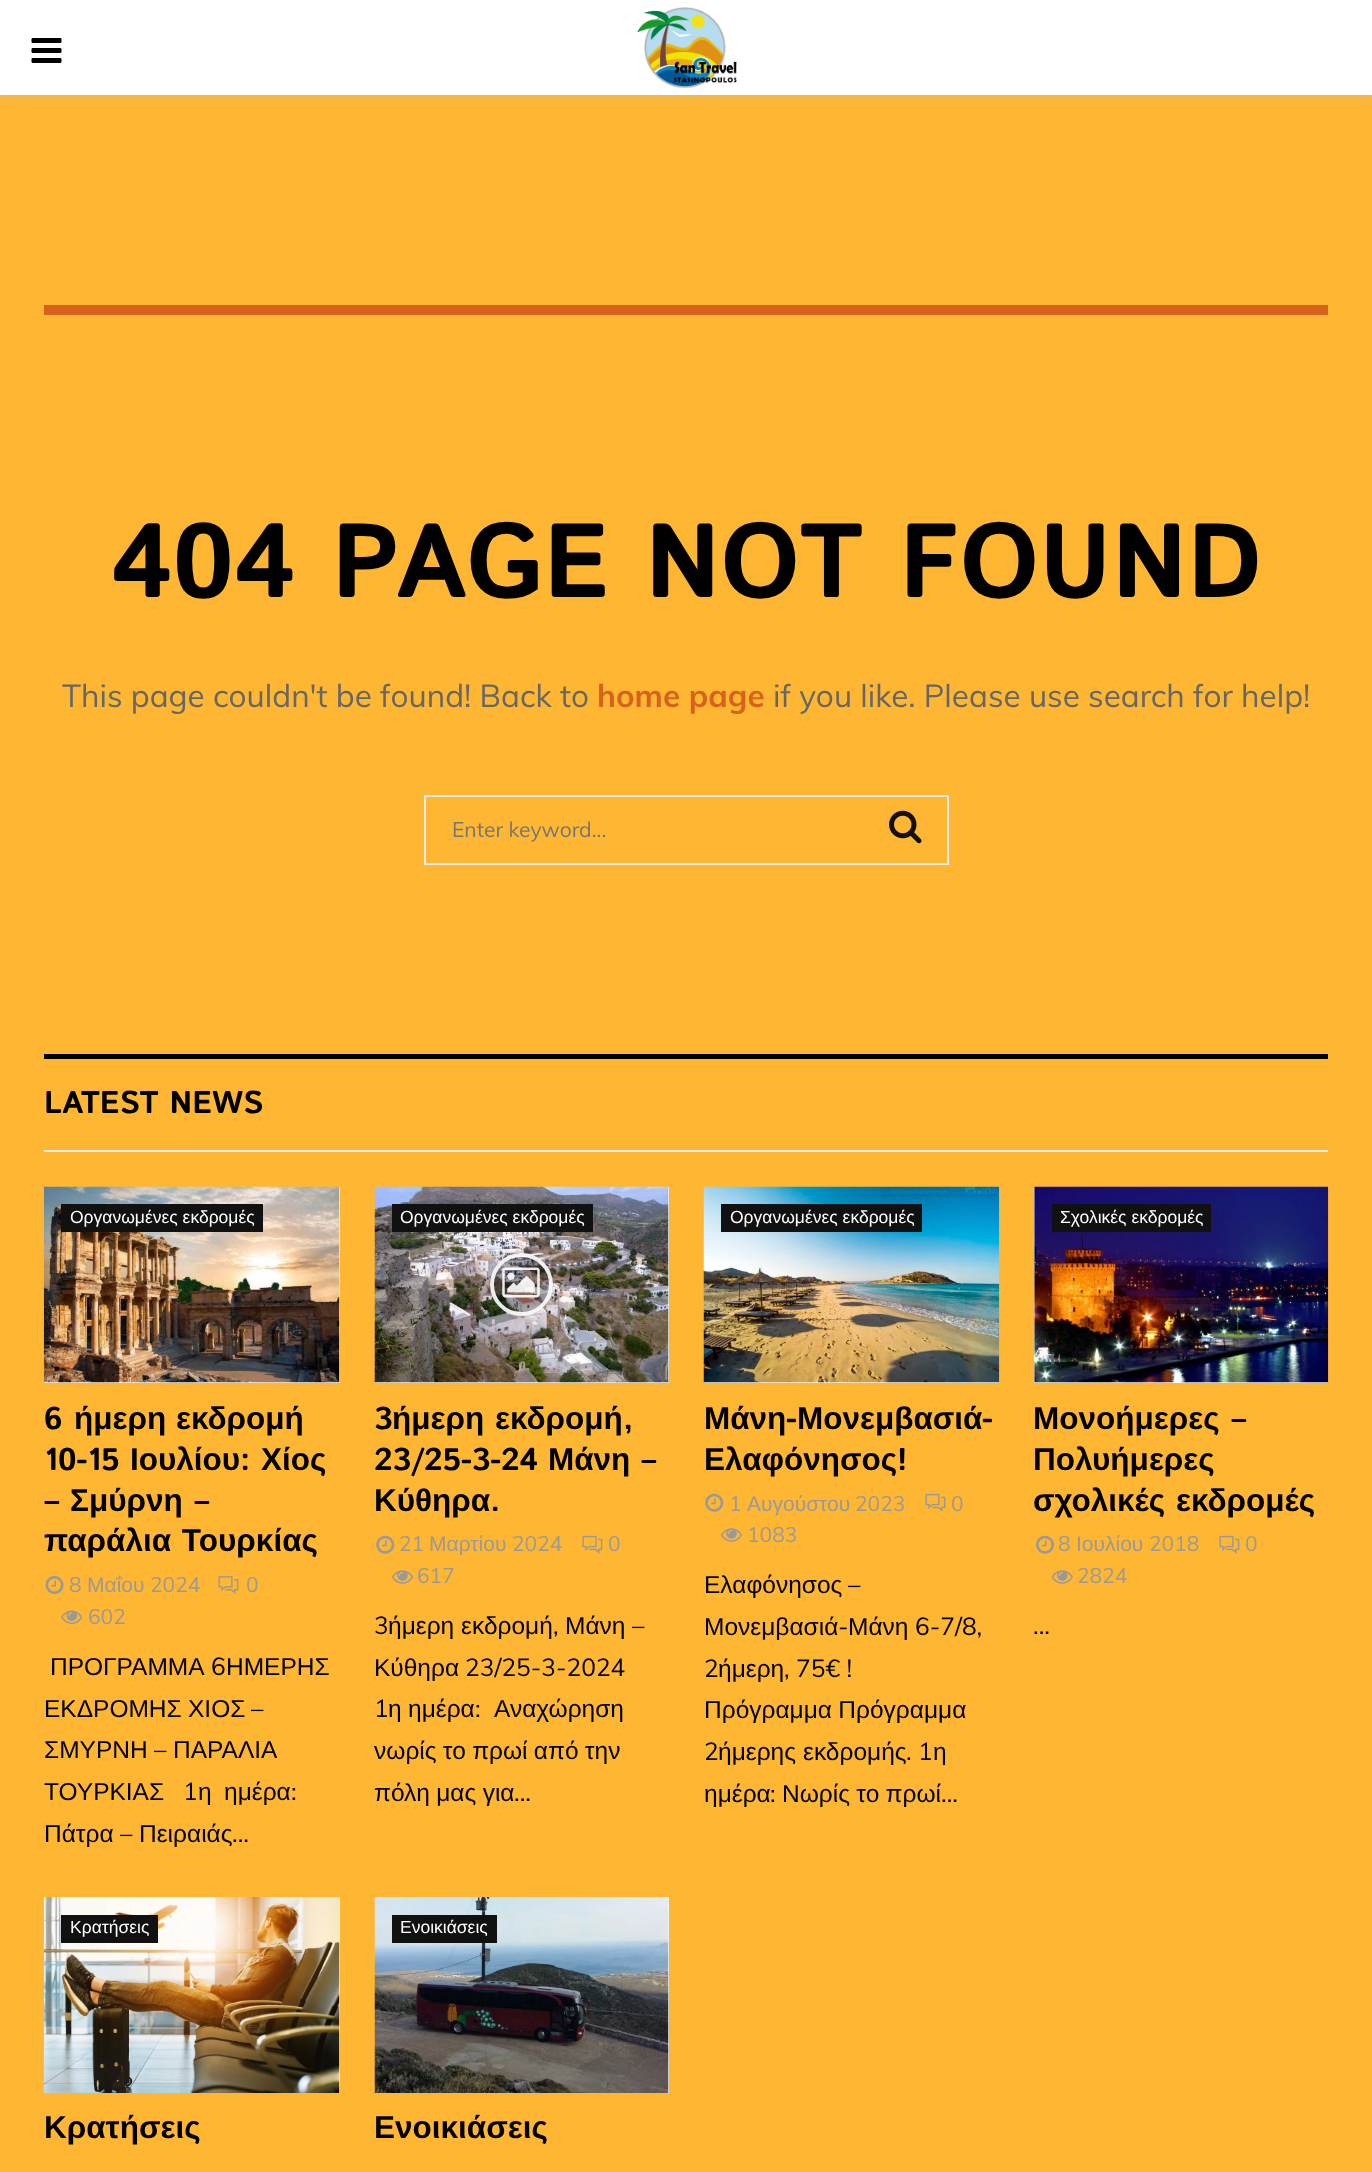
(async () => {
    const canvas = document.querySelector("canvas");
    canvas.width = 1372;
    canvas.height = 2172;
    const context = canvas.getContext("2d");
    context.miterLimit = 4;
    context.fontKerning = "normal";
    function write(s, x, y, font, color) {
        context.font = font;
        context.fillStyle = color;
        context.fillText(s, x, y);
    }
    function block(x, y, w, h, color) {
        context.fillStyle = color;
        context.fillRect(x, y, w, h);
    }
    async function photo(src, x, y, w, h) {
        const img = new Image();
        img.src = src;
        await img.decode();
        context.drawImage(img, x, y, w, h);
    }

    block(0, 0, 1372, 2172, "rgb(255, 183, 51)");
    context.fillStyle = "rgba(190, 190, 190, 0.46)";
    context.filter = "blur(4.5px)";
    context.beginPath();
    context.rect(0, 2, 1372, 94);
    context.fill();
    context.filter = "none";
    block(0, 0, 1372, 95, "rgb(255, 255, 255)");
    await photo("media/1.png", 31, 38, 31, 25);
    await photo("media/2.png", 637, 7, 100, 82);
    block(44, 305, 1284, 10, "rgb(216, 98, 27)");
    write("404 PAGE NOT FOUND", 111, 597, "bold 105px Istok Web", "rgb(0, 0, 0)");
    write("This page couldn't be found! Back to", 62, 707, "31.5px Muli", "rgb(102, 102, 102)");
    write("home page", 597, 707, "bold 31.5px Muli", "rgb(216, 98, 27)");
    write("if you like. Please use search for help!", 773, 707, "31.5px Muli", "rgb(102, 102, 102)");
    context.strokeStyle = "rgb(236, 236, 236)";
    context.lineWidth = 2;
    context.strokeRect(425, 796, 523, 68);
    write("Enter keyword...", 452, 837, "21px Muli", "rgb(117, 117, 117)");
    await photo("media/3.png", 889, 810, 33, 34);
    block(44, 1150, 1284, 2, "rgb(236, 236, 236)");
    block(44, 1054, 1284, 5, "rgb(0, 0, 0)");
    write("LATEST NEWS", 44, 1113, "bold 31.5px Istok Web", "rgb(0, 0, 0)");
    block(44, 1187, 296, 196, "rgb(245, 245, 245)");
    await photo("media/4.png", 43, 1186, 297, 197);
    block(61, 1204, 202, 28, "rgb(17, 17, 17)");
    write("Οργανωμένες εκδρομές", 70, 1223, "17.5px Liberation Sans", "rgb(255, 255, 255)");
    write("6", 44, 1429, "bold 31.5px Istok Web", "rgb(0, 0, 0)");
    context.wordSpacing = "1px";
    write("ήμερη εκδρομή", 74, 1429, "bold 31.5px Liberation Sans", "rgb(0, 0, 0)");
    context.wordSpacing = "0px";
    write("10-15", 44, 1470, "bold 31.5px Istok Web", "rgb(0, 0, 0)");
    write("Ιουλίου", 130, 1470, "bold 31.5px Liberation Sans", "rgb(0, 0, 0)");
    write(":", 240, 1470, "bold 31.5px Istok Web", "rgb(0, 0, 0)");
    write("Χίος", 261, 1470, "bold 31.5px Liberation Sans", "rgb(0, 0, 0)");
    write("–", 44, 1511, "bold 31.5px Istok Web", "rgb(0, 0, 0)");
    write("Σμύρνη", 70, 1511, "bold 31.5px Liberation Sans", "rgb(0, 0, 0)");
    write("–", 194, 1511, "bold 31.5px Istok Web", "rgb(0, 0, 0)");
    context.wordSpacing = "2px";
    write("παράλια Τουρκίας", 44, 1551, "bold 31.5px Liberation Sans", "rgb(0, 0, 0)");
    await photo("media/5.png", 45, 1576, 19, 18);
    context.wordSpacing = "0px";
    write("8", 69, 1592, "21px Muli", "rgb(153, 153, 153)");
    write("Μαΐου", 87, 1592, "21px Liberation Sans", "rgb(153, 153, 153)");
    write("2024", 150, 1592, "21px Muli", "rgb(153, 153, 153)");
    await photo("media/6.png", 218, 1576, 21, 18);
    write("0", 246, 1592, "21px Muli", "rgb(153, 153, 153)");
    await photo("media/7.png", 61, 1610, 22, 14);
    write("602", 88, 1624, "21px Muli", "rgb(153, 153, 153)");
    write("ΠΡΟΓΡΑΜΜΑ", 50, 1675, "24.5px Liberation Sans", "rgb(0, 0, 0)");
    write("6", 211, 1675, "24.5px Muli", "rgb(0, 0, 0)");
    write("ΗΜΕΡΗΣ", 226, 1675, "24.5px Liberation Sans", "rgb(0, 0, 0)");
    context.wordSpacing = "-0.5px";
    write("ΕΚΔΡΟΜΗΣ ΧΙΟΣ", 44, 1717, "24.5px Liberation Sans", "rgb(0, 0, 0)");
    context.wordSpacing = "0px";
    write("–", 251, 1717, "24.5px Muli", "rgb(0, 0, 0)");
    write("ΣΜΥΡΝΗ", 44, 1758, "24.5px Liberation Sans", "rgb(0, 0, 0)");
    write("–", 154, 1758, "24.5px Muli", "rgb(0, 0, 0)");
    write("ΠΑΡΑΛΙΑ", 173, 1758, "24.5px Liberation Sans", "rgb(0, 0, 0)");
    write("ΤΟΥΡΚΙΑΣ", 44, 1800, "24.5px Liberation Sans", "rgb(0, 0, 0)");
    write("1", 183, 1800, "24.5px Muli", "rgb(0, 0, 0)");
    write("η", 198, 1800, "24.5px Liberation Sans", "rgb(0, 0, 0)");
    write("ημέρα", 224, 1800, "24.5px Liberation Sans", "rgb(0, 0, 0)");
    write(":", 291, 1800, "24.5px Muli", "rgb(0, 0, 0)");
    write("Πάτρα", 44, 1842, "24.5px Liberation Sans", "rgb(0, 0, 0)");
    write("–", 120, 1842, "24.5px Muli", "rgb(0, 0, 0)");
    write("Πειραιάς", 139, 1842, "24.5px Liberation Sans", "rgb(0, 0, 0)");
    write("...", 232, 1842, "24.5px Muli", "rgb(0, 0, 0)");
    block(375, 1187, 294, 196, "rgb(245, 245, 245)");
    await photo("media/8.png", 374, 1186, 295, 197);
    context.fillStyle = "rgba(0, 0, 0, 0.3)";
    context.beginPath();
    context.arc(521.5, 1284.5, 31.5, 0, Math.PI * 2);
    context.fill();
    context.beginPath();
    context.arc(521.5, 1284.5, 29.5, 0, Math.PI * 2);
    context.strokeStyle = "rgba(255, 255, 255, 0.9)";
    context.lineWidth = 4;
    context.stroke();
    await photo("media/9.png", 502, 1267, 38, 31);
    block(392, 1204, 201, 28, "rgb(17, 17, 17)");
    write("Οργανωμένες εκδρομές", 400, 1223, "17.5px Liberation Sans", "rgb(255, 255, 255)");
    write("3", 374, 1429, "bold 31.5px Istok Web", "rgb(0, 0, 0)");
    context.wordSpacing = "2px";
    write("ήμερη εκδρομή", 392, 1429, "bold 31.5px Liberation Sans", "rgb(0, 0, 0)");
    context.wordSpacing = "0px";
    write(",", 623, 1429, "bold 31.5px Istok Web", "rgb(0, 0, 0)");
    write("23/25-3-24", 374, 1470, "bold 31.5px Istok Web", "rgb(0, 0, 0)");
    write("Μάνη", 548, 1470, "bold 31.5px Liberation Sans", "rgb(0, 0, 0)");
    write("–", 641, 1470, "bold 31.5px Istok Web", "rgb(0, 0, 0)");
    write("Κύθηρα", 374, 1511, "bold 31.5px Liberation Sans", "rgb(0, 0, 0)");
    write(".", 490, 1511, "bold 31.5px Istok Web", "rgb(0, 0, 0)");
    await photo("media/10.png", 376, 1535, 19, 19);
    write("21", 399, 1551, "21px Muli", "rgb(153, 153, 153)");
    write("Μαρτίου", 429, 1551, "21px Liberation Sans", "rgb(153, 153, 153)");
    write("2024", 512, 1551, "21px Muli", "rgb(153, 153, 153)");
    await photo("media/11.png", 582, 1535, 21, 19);
    write("0", 608, 1551, "21px Muli", "rgb(153, 153, 153)");
    await photo("media/12.png", 392, 1570, 21, 14);
    write("617", 417, 1583, "21px Muli", "rgb(153, 153, 153)");
    write("3", 374, 1634, "24.5px Muli", "rgb(0, 0, 0)");
    write("ήμερη εκδρομή", 388, 1634, "24.5px Liberation Sans", "rgb(0, 0, 0)");
    write("Μάνη", 565, 1634, "24.5px Liberation Sans", "rgb(0, 0, 0)");
    write("–", 632, 1634, "24.5px Muli", "rgb(0, 0, 0)");
    write(",", 553, 1634, "24.5px Muli", "rgb(0, 0, 0)");
    write("Κύθηρα", 374, 1676, "24.5px Liberation Sans", "rgb(0, 0, 0)");
    write("23/25-3-2024", 465, 1676, "24.5px Muli", "rgb(0, 0, 0)");
    write("1", 374, 1717, "24.5px Muli", "rgb(0, 0, 0)");
    write("η", 388, 1717, "24.5px Liberation Sans", "rgb(0, 0, 0)");
    write("ημέρα", 408, 1717, "24.5px Liberation Sans", "rgb(0, 0, 0)");
    write(":", 475, 1717, "24.5px Muli", "rgb(0, 0, 0)");
    write("Αναχώρηση", 494, 1717, "24.5px Liberation Sans", "rgb(0, 0, 0)");
    context.wordSpacing = "-0.5px";
    write("νωρίς το πρωί από την", 374, 1759, "24.5px Liberation Sans", "rgb(0, 0, 0)");
    write("πόλη μας για", 374, 1801, "24.5px Liberation Sans", "rgb(0, 0, 0)");
    context.wordSpacing = "0px";
    write("...", 514, 1801, "24.5px Muli", "rgb(0, 0, 0)");
    block(704, 1382, 295, 1, "rgb(245, 245, 245)");
    await photo("media/13.png", 703, 1186, 297, 197);
    block(721, 1204, 201, 28, "rgb(17, 17, 17)");
    write("Οργανωμένες εκδρομές", 730, 1223, "17.5px Liberation Sans", "rgb(255, 255, 255)");
    write("Μάνη", 704, 1429, "bold 31.5px Liberation Sans", "rgb(0, 0, 0)");
    write("-", 786, 1429, "bold 31.5px Istok Web", "rgb(0, 0, 0)");
    write("Μονεμβασιά", 797, 1429, "bold 31.5px Liberation Sans", "rgb(0, 0, 0)");
    write("-", 982, 1429, "bold 31.5px Istok Web", "rgb(0, 0, 0)");
    write("Ελαφόνησος", 704, 1470, "bold 31.5px Liberation Sans", "rgb(0, 0, 0)");
    write("!", 897, 1470, "bold 31.5px Istok Web", "rgb(0, 0, 0)");
    await photo("media/10.png", 705, 1493, 19, 19);
    write("1", 729, 1511, "21px Muli", "rgb(153, 153, 153)");
    write("Αυγούστου", 747, 1511, "21px Liberation Sans", "rgb(153, 153, 153)");
    write("2023", 855, 1511, "21px Muli", "rgb(153, 153, 153)");
    await photo("media/11.png", 925, 1493, 21, 19);
    write("0", 951, 1511, "21px Muli", "rgb(153, 153, 153)");
    await photo("media/12.png", 721, 1528, 21, 14);
    write("1083", 747, 1542, "21px Muli", "rgb(153, 153, 153)");
    write("Ελαφόνησος", 704, 1593, "24.5px Liberation Sans", "rgb(0, 0, 0)");
    write("–", 848, 1593, "24.5px Muli", "rgb(0, 0, 0)");
    write("Μονεμβασιά", 704, 1635, "24.5px Liberation Sans", "rgb(0, 0, 0)");
    write("-", 838, 1635, "24.5px Muli", "rgb(0, 0, 0)");
    write("Μάνη", 848, 1635, "24.5px Liberation Sans", "rgb(0, 0, 0)");
    write("6-7/8,", 915, 1635, "24.5px Muli", "rgb(0, 0, 0)");
    write("2", 704, 1677, "24.5px Muli", "rgb(0, 0, 0)");
    write("ήμερη", 718, 1677, "24.5px Liberation Sans", "rgb(0, 0, 0)");
    write(", 75€ !", 784, 1677, "24.5px Muli", "rgb(0, 0, 0)");
    context.wordSpacing = "-0.5px";
    write("Πρόγραμμα Πρόγραμμα", 704, 1718, "24.5px Liberation Sans", "rgb(0, 0, 0)");
    context.wordSpacing = "0px";
    write("2", 704, 1760, "24.5px Muli", "rgb(0, 0, 0)");
    write("ήμερης", 718, 1760, "24.5px Liberation Sans", "rgb(0, 0, 0)");
    write("εκδρομής", 803, 1760, "24.5px Liberation Sans", "rgb(0, 0, 0)");
    write(". 1", 906, 1760, "24.5px Muli", "rgb(0, 0, 0)");
    write("η", 933, 1760, "24.5px Liberation Sans", "rgb(0, 0, 0)");
    write("ημέρα", 704, 1802, "24.5px Liberation Sans", "rgb(0, 0, 0)");
    write(":", 770, 1802, "24.5px Muli", "rgb(0, 0, 0)");
    context.wordSpacing = "-0.5px";
    write("Νωρίς το πρωί", 782, 1802, "24.5px Liberation Sans", "rgb(0, 0, 0)");
    context.wordSpacing = "0px";
    write("...", 941, 1802, "24.5px Muli", "rgb(0, 0, 0)");
    block(1034, 1187, 294, 196, "rgb(245, 245, 245)");
    await photo("media/14.png", 1034, 1186, 295, 197);
    block(1052, 1204, 159, 28, "rgb(17, 17, 17)");
    write("Σχολικές εκδρομές", 1060, 1223, "17.5px Liberation Sans", "rgb(255, 255, 255)");
    write("Μονοήμερες", 1033, 1429, "bold 31.5px Liberation Sans", "rgb(0, 0, 0)");
    write("–", 1231, 1429, "bold 31.5px Istok Web", "rgb(0, 0, 0)");
    write("Πολυήμερες", 1033, 1470, "bold 31.5px Liberation Sans", "rgb(0, 0, 0)");
    context.wordSpacing = "2px";
    write("σχολικές εκδρομές", 1033, 1511, "bold 31.5px Liberation Sans", "rgb(0, 0, 0)");
    await photo("media/15.png", 1036, 1535, 18, 19);
    context.wordSpacing = "0px";
    write("8", 1058, 1551, "21px Muli", "rgb(153, 153, 153)");
    write("Ιουλίου", 1076, 1551, "21px Liberation Sans", "rgb(153, 153, 153)");
    write("2018", 1149, 1551, "21px Muli", "rgb(153, 153, 153)");
    await photo("media/11.png", 1219, 1535, 21, 19);
    write("0", 1245, 1551, "21px Muli", "rgb(153, 153, 153)");
    await photo("media/16.png", 1051, 1570, 22, 14);
    write("2824", 1077, 1583, "21px Muli", "rgb(153, 153, 153)");
    write("...", 1033, 1634, "24.5px Muli", "rgb(0, 0, 0)");
    block(339, 1897, 1, 196, "rgb(245, 245, 245)");
    await photo("media/17.png", 43, 1897, 297, 196);
    block(61, 1915, 97, 28, "rgb(17, 17, 17)");
    write("Κρατήσεις", 70, 1933, "17.5px Liberation Sans", "rgb(255, 255, 255)");
    write("Κρατήσεις", 44, 2138, "bold 31.5px Liberation Sans", "rgb(0, 0, 0)");
    block(668, 1897, 1, 196, "rgb(245, 245, 245)");
    await photo("media/18.png", 374, 1897, 295, 196);
    block(392, 1915, 105, 28, "rgb(17, 17, 17)");
    write("Ενοικιάσεις", 400, 1933, "17.5px Liberation Sans", "rgb(255, 255, 255)");
    write("Ενοικιάσεις", 374, 2138, "bold 31.5px Liberation Sans", "rgb(0, 0, 0)");
})();
